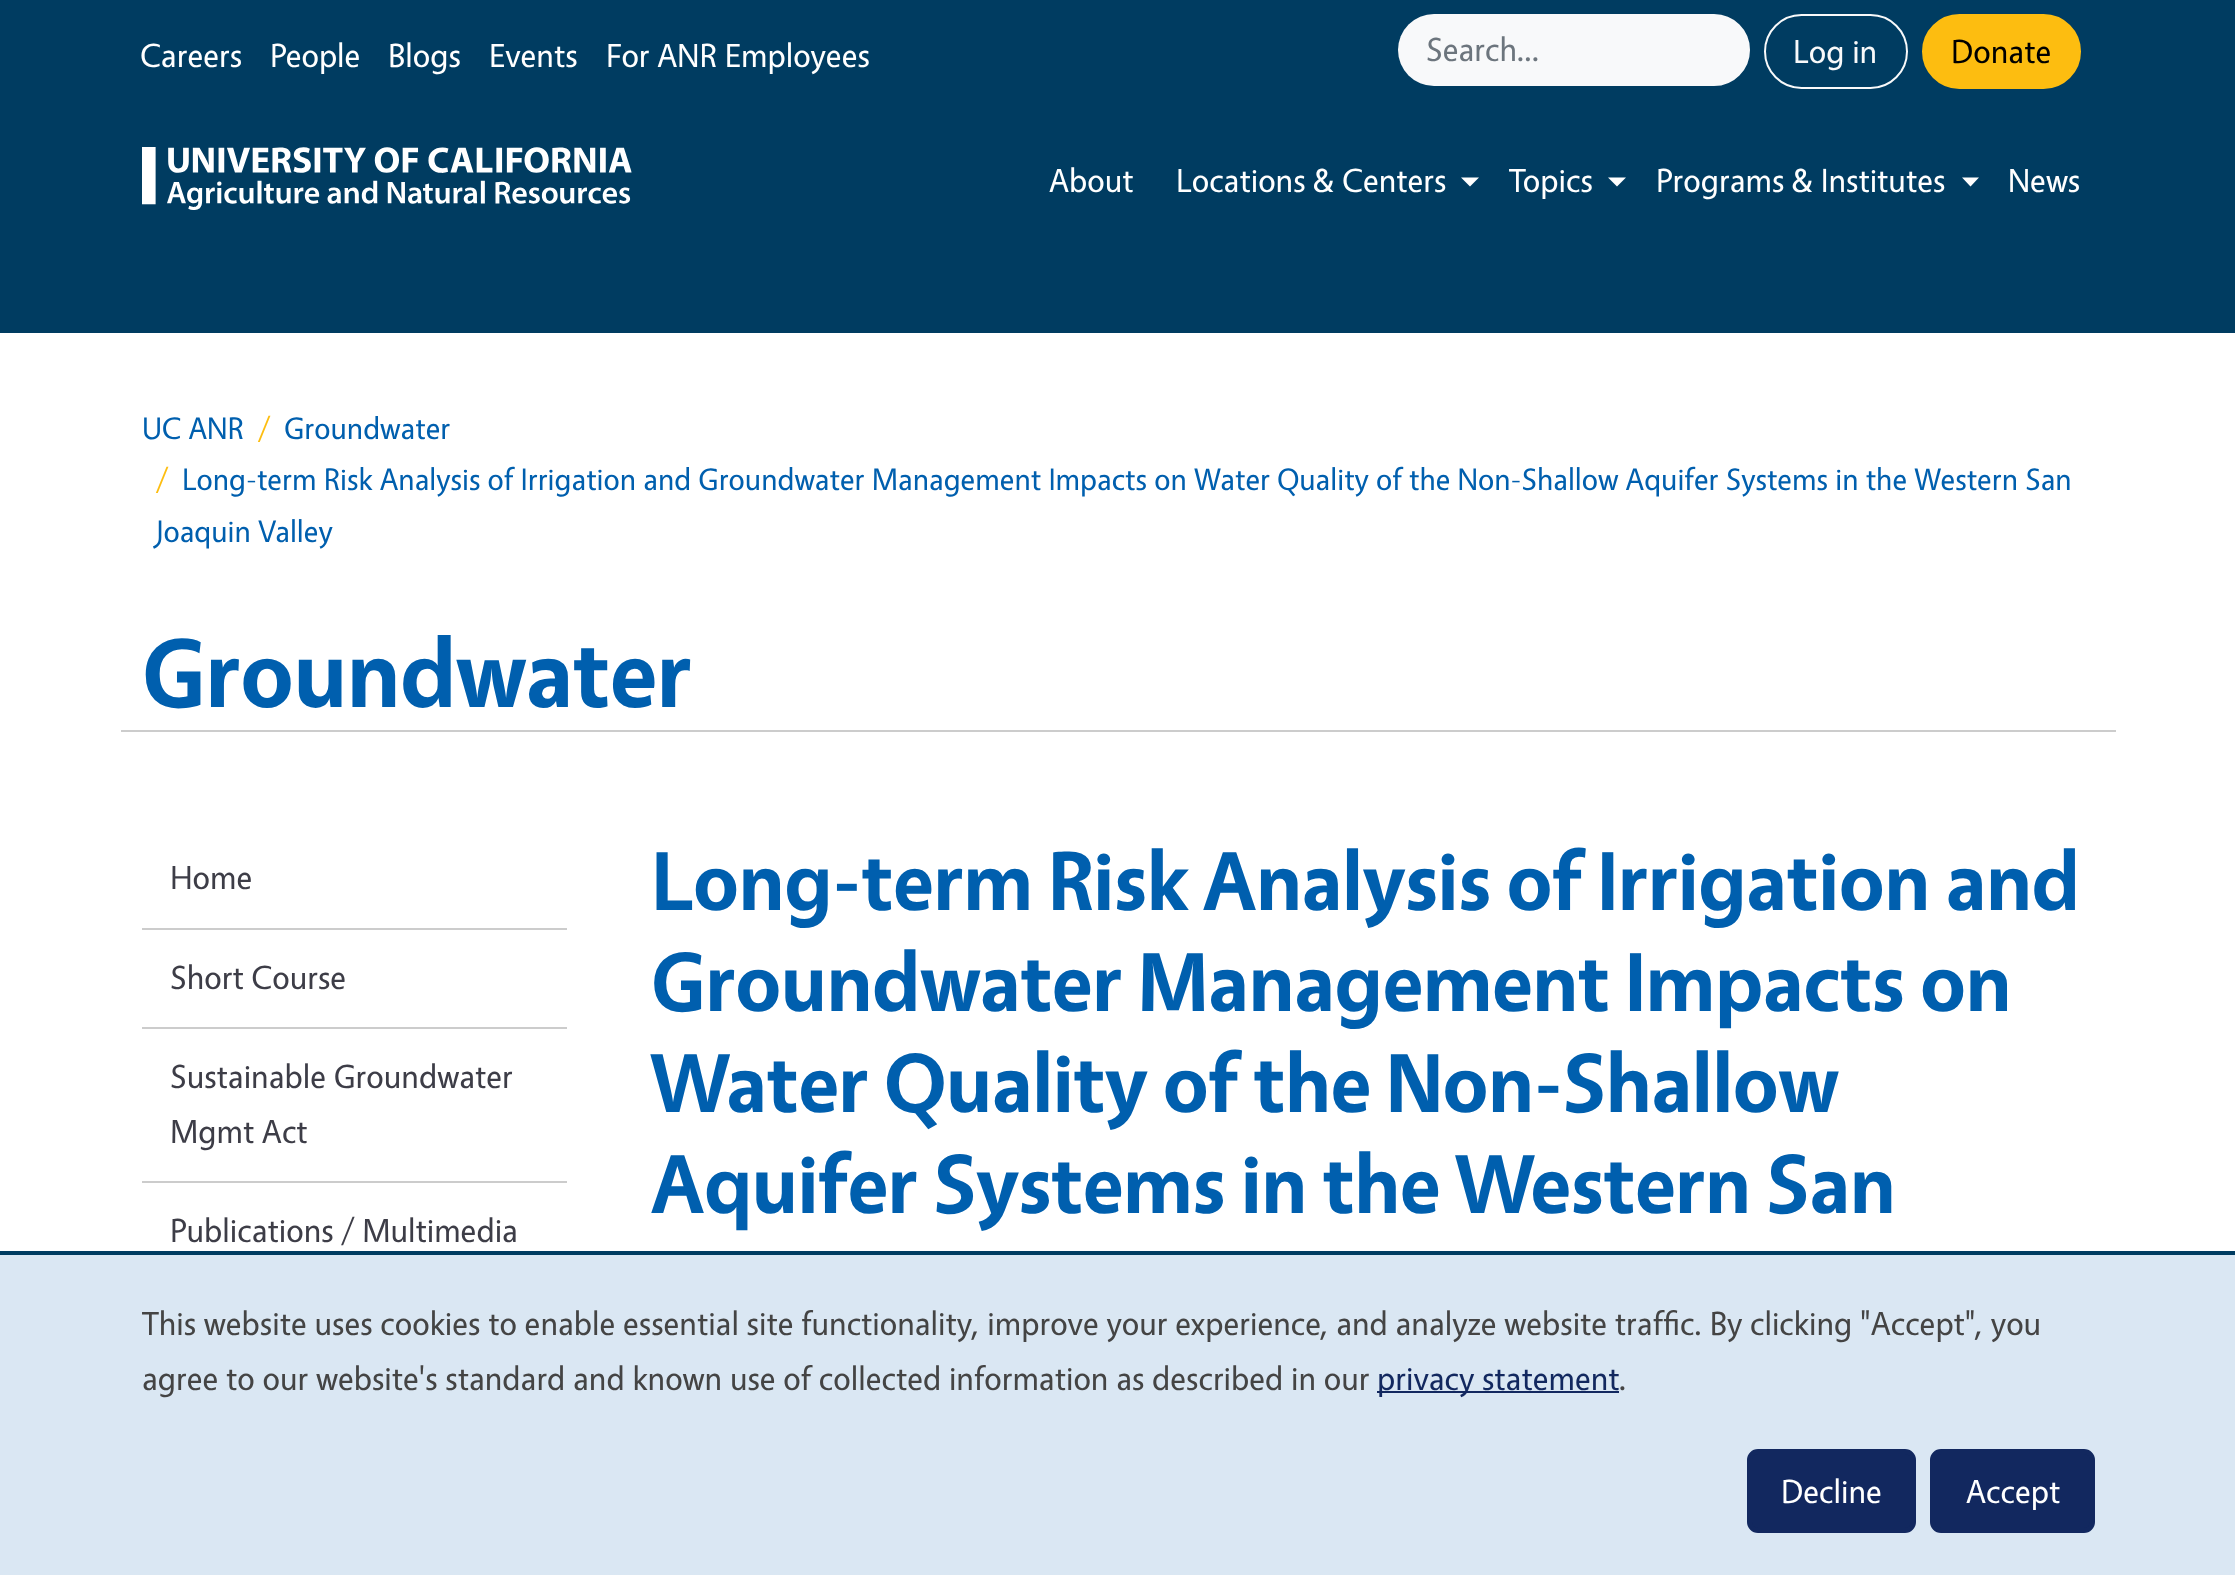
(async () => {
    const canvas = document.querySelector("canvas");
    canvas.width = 2235;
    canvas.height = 1575;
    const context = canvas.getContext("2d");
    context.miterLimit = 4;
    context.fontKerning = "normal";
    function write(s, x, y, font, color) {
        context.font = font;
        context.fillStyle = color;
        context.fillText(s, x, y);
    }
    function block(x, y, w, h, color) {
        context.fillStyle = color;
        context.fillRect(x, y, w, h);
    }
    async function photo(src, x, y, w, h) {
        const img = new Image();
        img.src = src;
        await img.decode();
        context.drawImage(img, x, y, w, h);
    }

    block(0, 0, 2235, 1575, "rgb(0, 60, 97)");
    write("Careers", 140, 67, "33.6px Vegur", "rgb(255, 255, 255)");
    write("People", 270, 67, "33.6px Vegur", "rgb(255, 255, 255)");
    write("Blogs", 388, 67, "33.6px Vegur", "rgb(255, 255, 255)");
    write("Events", 489, 67, "33.6px Vegur", "rgb(255, 255, 255)");
    write("For ANR Employees", 606, 67, "33.6px Vegur", "rgb(255, 255, 255)");
    context.fillStyle = "rgb(248, 249, 250)";
    context.beginPath();
    context.roundRect(1398, 14, 308, 72, [36, 0, 0, 36]);
    context.fill();
    write("Search...", 1426, 61, "33.6px Vegur", "rgb(108, 117, 125)");
    context.fillStyle = "rgb(248, 249, 250)";
    context.beginPath();
    context.roundRect(1706, 15, 43, 70, [0, 35, 35, 0]);
    context.fill();
    context.strokeStyle = "rgb(248, 249, 250)";
    context.lineWidth = 2;
    context.stroke();
    context.beginPath();
    context.roundRect(1765, 15, 142, 73, 36.5);
    context.stroke();
    write("Log in", 1793, 63, "33.6px Vegur", "rgb(248, 249, 250)");
    context.fillStyle = "rgb(253, 189, 16)";
    context.beginPath();
    context.roundRect(1923, 15, 157, 73, 36.5);
    context.fill();
    context.strokeStyle = "rgb(253, 189, 16)";
    context.stroke();
    write("Donate", 1951, 63, "33.6px Vegur", "rgb(0, 0, 0)");
    await photo("media/1.png", 142, 147, 490, 63);
    write("About", 1049, 192, "33.6px Vegur", "rgb(255, 255, 255)");
    write("Locations & Centers", 1176, 192, "33.6px Vegur", "rgb(255, 255, 255)");
    context.beginPath();
    context.moveTo(1461, 177.5);
    context.lineTo(1479, 177.5);
    context.lineTo(1470, 186.5);
    context.closePath();
    context.fill();
    write("Topics", 1509, 192, "33.6px Vegur", "rgb(255, 255, 255)");
    context.beginPath();
    context.moveTo(1608, 177.5);
    context.lineTo(1626, 177.5);
    context.lineTo(1617, 186.5);
    context.closePath();
    context.fill();
    write("Programs & Institutes", 1656, 192, "33.6px Vegur", "rgb(255, 255, 255)");
    context.beginPath();
    context.moveTo(1962, 177.5);
    context.lineTo(1979, 177.5);
    context.lineTo(1970.5, 186.5);
    context.closePath();
    context.fill();
    write("News", 2008, 192, "33.6px Vegur", "rgb(255, 255, 255)");
    block(0, 333, 2235, 918, "rgb(255, 255, 255)");
    write("UC ANR", 142, 439, "31.2px Vegur", "rgb(0, 95, 174)");
    write("/", 258, 439, "31.2px Vegur", "rgb(253, 189, 16)");
    write("Groundwater", 284, 439, "31.2px Vegur", "rgb(0, 95, 174)");
    write("/", 156, 490, "31.2px Vegur", "rgb(253, 189, 16)");
    write("Long-term Risk Analysis of Irrigation and Groundwater Management Impacts on Water Quality of the Non-Shallow Aquifer Systems in the Western San", 182, 490, "31.2px Vegur", "rgb(0, 95, 174)");
    write("Joaquin Valley", 156, 542, "31.2px Vegur", "rgb(0, 95, 174)");
    block(121, 730, 1995, 2, "rgb(204, 204, 204)");
    write("Groundwater", 142, 707, "bold 98px Vegur", "rgb(0, 95, 174)");
    block(142, 928, 425, 2, "rgb(204, 204, 204)");
    write("Home", 170, 889, "33.6px Vegur", "rgb(61, 61, 71)");
    block(142, 1027, 425, 2, "rgb(204, 204, 204)");
    write("Short Course", 170, 989, "33.6px Vegur", "rgb(61, 61, 71)");
    block(142, 1181, 425, 2, "rgb(204, 204, 204)");
    write("Sustainable Groundwater", 170, 1088, "33.6px Vegur", "rgb(61, 61, 71)");
    write("Mgmt Act", 170, 1143, "33.6px Vegur", "rgb(61, 61, 71)");
    write("Publications / Multimedia", 170, 1242, "33.6px Vegur", "rgb(61, 61, 71)");
    write("Long-term Risk Analysis of Irrigation and", 651, 910, "bold 84px Vegur", "rgb(0, 95, 174)");
    write("Groundwater Management Impacts on", 651, 1011, "bold 84px Vegur", "rgb(0, 95, 174)");
    write("Water Quality of the Non-Shallow", 651, 1112, "bold 84px Vegur", "rgb(0, 95, 174)");
    write("Aquifer Systems in the Western San", 651, 1213, "bold 84px Vegur", "rgb(0, 95, 174)");
    block(0, 1255, 2235, 320, "rgb(218, 231, 243)");
    write("This website uses cookies to enable essential site functionality, improve your experience, and analyze website traffic. By clicking \"Accept\", you", 142, 1335, "33.6px Vegur", "rgb(68, 68, 68)");
    write("agree to our website's standard and known use of collected information as described in our", 142, 1390, "33.6px Vegur", "rgb(68, 68, 68)");
    block(1377, 1391, 242, 2, "rgb(18, 40, 95)");
    write("privacy statement", 1377, 1390, "33.6px Vegur", "rgb(18, 40, 95)");
    write(".", 1619, 1390, "33.6px Vegur", "rgb(68, 68, 68)");
    context.fillStyle = "rgb(18, 40, 95)";
    context.beginPath();
    context.roundRect(1749.5, 1451.5, 164, 79, 8.5);
    context.fill();
    context.strokeStyle = "rgb(18, 40, 95)";
    context.lineWidth = 5;
    context.stroke();
    write("Decline", 1781, 1503, "33.6px Vegur", "rgb(255, 255, 255)");
    context.fillStyle = "rgb(18, 40, 95)";
    context.beginPath();
    context.roundRect(1932.5, 1451.5, 160, 79, 8.5);
    context.fill();
    context.stroke();
    write("Accept", 1966, 1503, "33.6px Vegur", "rgb(255, 255, 255)");
})();
